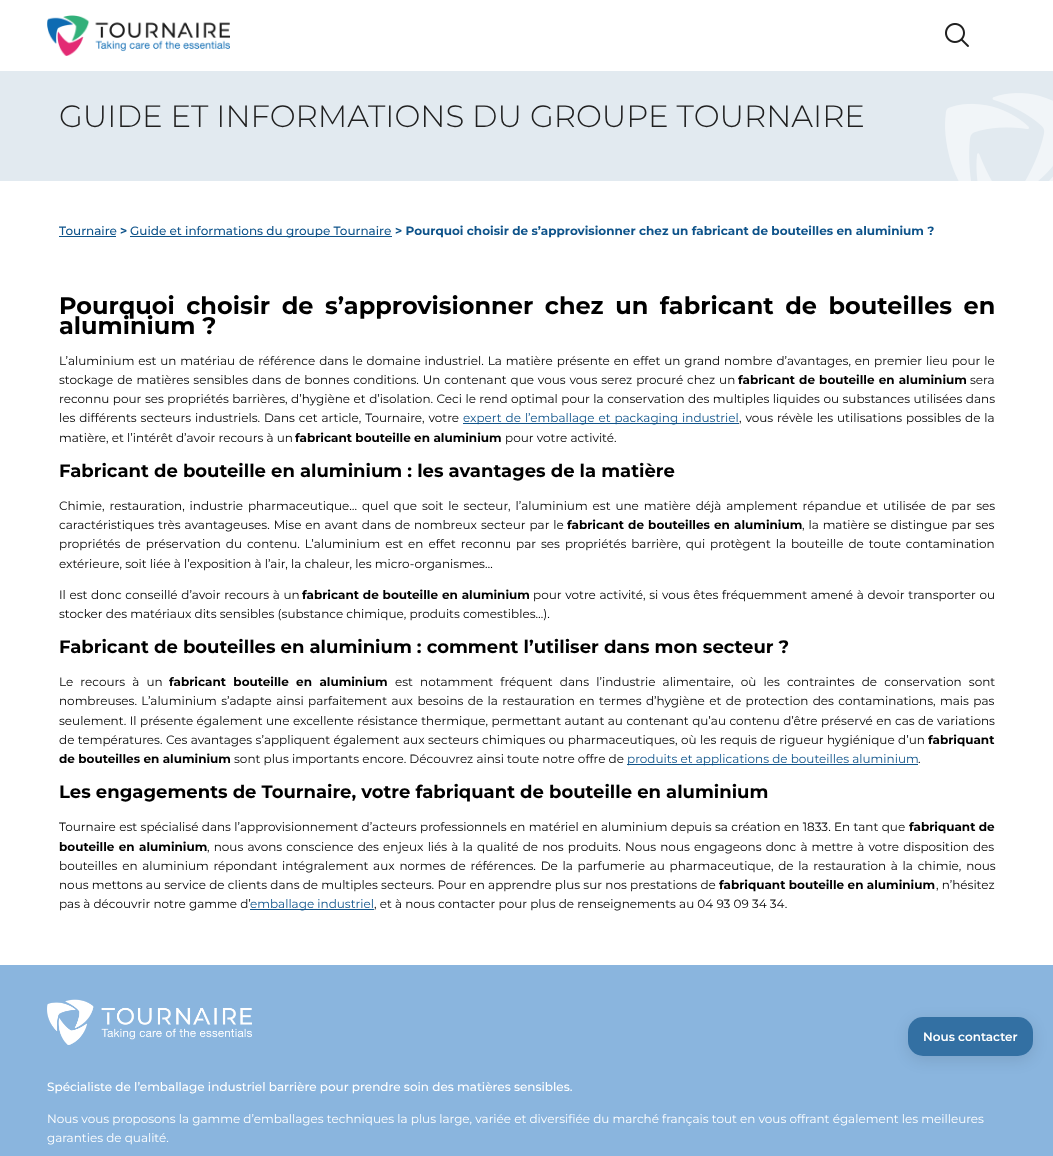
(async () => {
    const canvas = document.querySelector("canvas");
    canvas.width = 1053;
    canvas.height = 1156;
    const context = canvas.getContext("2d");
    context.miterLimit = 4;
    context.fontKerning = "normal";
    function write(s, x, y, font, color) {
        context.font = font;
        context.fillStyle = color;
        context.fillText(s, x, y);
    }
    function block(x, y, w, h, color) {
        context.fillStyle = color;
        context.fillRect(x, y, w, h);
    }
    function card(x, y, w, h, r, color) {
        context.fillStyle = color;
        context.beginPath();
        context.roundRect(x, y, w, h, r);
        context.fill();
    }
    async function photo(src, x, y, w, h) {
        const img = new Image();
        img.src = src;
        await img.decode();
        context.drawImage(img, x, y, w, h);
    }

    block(0, 0, 1053, 1156, "rgb(255, 255, 255)");
    await photo("media/1.png", 47, 15, 183, 41);
    await photo("media/2.png", 945, 23, 24, 24);
    block(0, 71, 1053, 110, "rgb(226, 234, 240)");
    await photo("media/3.png", 945, 93, 108, 88);
    write("GUIDE ET INFORMATIONS DU GROUPE TOURNAIRE", 59, 127, "300 30.85px Montserrat", "rgb(32, 32, 32)");
    write("Tournaire", 59, 235, "500 12px Montserrat", "rgb(14, 83, 138)");
    block(59, 236, 57, 1, "rgb(14, 83, 138)");
    write(">", 120, 235, "bold 12px Montserrat", "rgb(14, 83, 138)");
    block(130, 236, 262, 1, "rgb(14, 83, 138)");
    write("Guide et informations du groupe Tournaire", 130, 235, "500 12px Montserrat", "rgb(14, 83, 138)");
    write("> Pourquoi choisir de s’approvisionner chez un fabricant de bouteilles en aluminium ?", 395, 235, "bold 12px Montserrat", "rgb(14, 83, 138)");
    context.wordSpacing = "4.75px";
    write("Pourquoi choisir de s’approvisionner chez un fabricant de bouteilles en", 59, 314, "bold 24px Montserrat", "rgb(0, 0, 0)");
    context.wordSpacing = "0px";
    write("aluminium ?", 59, 334, "bold 24px Montserrat", "rgb(0, 0, 0)");
    context.wordSpacing = "0.75px";
    write("L’aluminium est un matériau de référence dans le domaine industriel. La matière présente en effet un grand nombre d’avantages, en premier lieu pour le", 59, 365, "12px Montserrat", "rgb(0, 0, 0)");
    write("stockage de matières sensibles dans de bonnes conditions. Un contenant que vous vous serez procuré chez un", 59, 384, "12px Montserrat", "rgb(0, 0, 0)");
    write("fabricant de bouteille en aluminium", 738, 384, "bold 12px Montserrat", "rgb(0, 0, 0)");
    context.wordSpacing = "0px";
    write("sera", 970, 384, "12px Montserrat", "rgb(0, 0, 0)");
    context.wordSpacing = "0.35px";
    write("reconnu pour ses propriétés barrières, d’hygiène et d’isolation. Ceci le rend optimal pour la conservation des multiples liquides ou substances utilisées dans", 59, 403, "12px Montserrat", "rgb(0, 0, 0)");
    context.wordSpacing = "0.75px";
    write("les différents secteurs industriels. Dans cet article, Tournaire, votre", 59, 422, "12px Montserrat", "rgb(0, 0, 0)");
    block(463, 423, 276, 1, "rgb(14, 83, 138)");
    write("expert de l’emballage et packaging industriel", 463, 422, "12px Montserrat", "rgb(14, 83, 138)");
    write(", vous révèle les utilisations possibles de la", 739, 422, "12px Montserrat", "rgb(0, 0, 0)");
    context.wordSpacing = "0px";
    write("matière, et l’intérêt d’avoir recours à un", 59, 442, "12px Montserrat", "rgb(0, 0, 0)");
    write("fabricant bouteille en aluminium", 295, 442, "bold 12px Montserrat", "rgb(0, 0, 0)");
    write("pour votre activité.", 505, 442, "12px Montserrat", "rgb(0, 0, 0)");
    write("Fabricant de bouteille en aluminium : les avantages de la matière", 59, 477, "bold 18px Montserrat", "rgb(0, 0, 0)");
    context.wordSpacing = "1.75px";
    write("Chimie, restauration, industrie pharmaceutique… quel que soit le secteur, l’aluminium est une matière déjà amplement répandue et utilisée de par ses", 59, 510, "12px Montserrat", "rgb(0, 0, 0)");
    context.wordSpacing = "0.75px";
    write("caractéristiques très avantageuses. Mise en avant dans de nombreux secteur par le", 59, 529, "12px Montserrat", "rgb(0, 0, 0)");
    write("fabricant de bouteilles en aluminium", 567, 529, "bold 12px Montserrat", "rgb(0, 0, 0)");
    write(", la matière se distingue par ses", 802, 529, "12px Montserrat", "rgb(0, 0, 0)");
    context.wordSpacing = "1.8px";
    write("propriétés de préservation du contenu. L’aluminium est en effet reconnu par ses propriétés barrière, qui protègent la bouteille de toute contamination", 59, 548, "12px Montserrat", "rgb(0, 0, 0)");
    context.wordSpacing = "0px";
    write("extérieure, soit liée à l’exposition à l’air, la chaleur, les micro-organismes…", 59, 568, "12px Montserrat", "rgb(0, 0, 0)");
    context.wordSpacing = "0.5px";
    write("Il est donc conseillé d’avoir recours à un", 59, 599, "12px Montserrat", "rgb(0, 0, 0)");
    write("fabricant de bouteille en aluminium", 302, 599, "bold 12px Montserrat", "rgb(0, 0, 0)");
    write("pour votre activité, si vous êtes fréquemment amené à devoir transporter ou", 533, 599, "12px Montserrat", "rgb(0, 0, 0)");
    context.wordSpacing = "0px";
    write("stocker des matériaux dits sensibles (substance chimique, produits comestibles…).", 59, 618, "12px Montserrat", "rgb(0, 0, 0)");
    write("Fabricant de bouteilles en aluminium : comment l’utiliser dans mon secteur ?", 59, 653, "bold 18px Montserrat", "rgb(0, 0, 0)");
    context.wordSpacing = "4px";
    write("Le recours à un", 59, 686, "12px Montserrat", "rgb(0, 0, 0)");
    write("fabricant bouteille en aluminium", 169, 686, "bold 12px Montserrat", "rgb(0, 0, 0)");
    write("est notamment fréquent dans l’industrie alimentaire, où les contraintes de conservation sont", 395, 686, "12px Montserrat", "rgb(0, 0, 0)");
    context.wordSpacing = "1.25px";
    write("nombreuses. L’aluminium s’adapte ainsi parfaitement aux besoins de la restauration en termes d’hygiène et de protection des contaminations, mais pas", 59, 705, "12px Montserrat", "rgb(0, 0, 0)");
    context.wordSpacing = "0.3px";
    write("seulement. Il présente également une excellente résistance thermique, permettant autant au contenant qu’au contenu d’être préservé en cas de variations", 59, 725, "12px Montserrat", "rgb(0, 0, 0)");
    write("de températures. Ces avantages s’appliquent également aux secteurs chimiques ou pharmaceutiques, où les requis de rigueur hygiénique d’un", 59, 744, "12px Montserrat", "rgb(0, 0, 0)");
    context.wordSpacing = "0px";
    write("fabriquant", 928, 744, "bold 12px Montserrat", "rgb(0, 0, 0)");
    write("de bouteilles en aluminium", 59, 763, "bold 12px Montserrat", "rgb(0, 0, 0)");
    write("sont plus importants encore. Découvrez ainsi toute notre offre de", 234, 763, "12px Montserrat", "rgb(0, 0, 0)");
    block(627, 764, 291, 1, "rgb(14, 83, 138)");
    write("produits et applications de bouteilles aluminium", 627, 763, "12px Montserrat", "rgb(14, 83, 138)");
    write(".", 918, 763, "12px Montserrat", "rgb(0, 0, 0)");
    write("Les engagements de Tournaire, votre fabriquant de bouteille en aluminium", 59, 798, "bold 18px Montserrat", "rgb(0, 0, 0)");
    context.wordSpacing = "0.25px";
    write("Tournaire est spécialisé dans l’approvisionnement d’acteurs professionnels en matériel en aluminium depuis sa création en 1833. En tant que", 59, 831, "12px Montserrat", "rgb(0, 0, 0)");
    context.wordSpacing = "0px";
    write("fabriquant de", 909, 831, "bold 12px Montserrat", "rgb(0, 0, 0)");
    context.wordSpacing = "1px";
    write("bouteille en aluminium", 59, 851, "bold 12px Montserrat", "rgb(0, 0, 0)");
    write(", nous avons conscience des enjeux liés à la qualité de nos produits. Nous nous engageons donc à mettre à votre disposition des", 207, 851, "12px Montserrat", "rgb(0, 0, 0)");
    context.wordSpacing = "1.6px";
    write("bouteilles en aluminium répondant intégralement aux normes de références. De la parfumerie au pharmaceutique, de la restauration à la chimie, nous", 59, 870, "12px Montserrat", "rgb(0, 0, 0)");
    context.wordSpacing = "0.1px";
    write("nous mettons au service de clients dans de multiples secteurs. Pour en apprendre plus sur nos prestations de", 59, 889, "12px Montserrat", "rgb(0, 0, 0)");
    context.wordSpacing = "0px";
    write("fabriquant bouteille en aluminium", 719, 889, "bold 12px Montserrat", "rgb(0, 0, 0)");
    write(", n’hésitez", 936, 889, "12px Montserrat", "rgb(0, 0, 0)");
    write("pas à découvrir notre gamme d’", 59, 908, "12px Montserrat", "rgb(0, 0, 0)");
    block(250, 909, 124, 1, "rgb(14, 83, 138)");
    write("emballage industriel", 250, 908, "12px Montserrat", "rgb(14, 83, 138)");
    write(", et à nous contacter pour plus de renseignements au 04 93 09 34 34.", 374, 908, "12px Montserrat", "rgb(0, 0, 0)");
    block(0, 965, 1053, 191, "rgb(138, 181, 222)");
    context.save();
    context.beginPath();
    context.moveTo(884, 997);
    context.lineTo(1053, 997);
    context.lineTo(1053, 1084);
    context.lineTo(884, 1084);
    context.closePath();
    context.moveTo(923, 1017);
    context.lineTo(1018, 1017);
    context.bezierCurveTo(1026.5, 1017, 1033, 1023.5, 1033, 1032);
    context.lineTo(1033, 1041);
    context.bezierCurveTo(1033, 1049.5, 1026.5, 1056, 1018, 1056);
    context.lineTo(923, 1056);
    context.bezierCurveTo(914.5, 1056, 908, 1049.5, 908, 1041);
    context.lineTo(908, 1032);
    context.bezierCurveTo(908, 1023.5, 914.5, 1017, 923, 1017);
    context.closePath();
    context.clip("evenodd");
    context.fillStyle = "rgba(0, 0, 0, 0.1)";
    context.filter = "blur(7.5px)";
    context.beginPath();
    context.roundRect(908, 1021, 125, 39, 15);
    context.fill();
    context.filter = "none";
    context.restore();
    card(908, 1017, 125, 39, 15, "rgba(14, 83, 138, 0.7)");
    write("Nous contacter", 923, 1041, "600 12px Montserrat", "rgb(255, 255, 255)");
    await photo("media/4.png", 47, 999, 205, 46);
    write("Spécialiste de l’emballage industriel barrière pour prendre soin des matières sensibles.", 47, 1091, "500 12px Montserrat", "rgb(255, 255, 255)");
    write("Nous vous proposons la gamme d’emballages techniques la plus large, variée et diversifiée du marché français tout en vous offrant également les meilleures", 47, 1123, "12px Montserrat", "rgb(255, 255, 255)");
    write("garanties de qualité.", 47, 1142, "12px Montserrat", "rgb(255, 255, 255)");
})();
